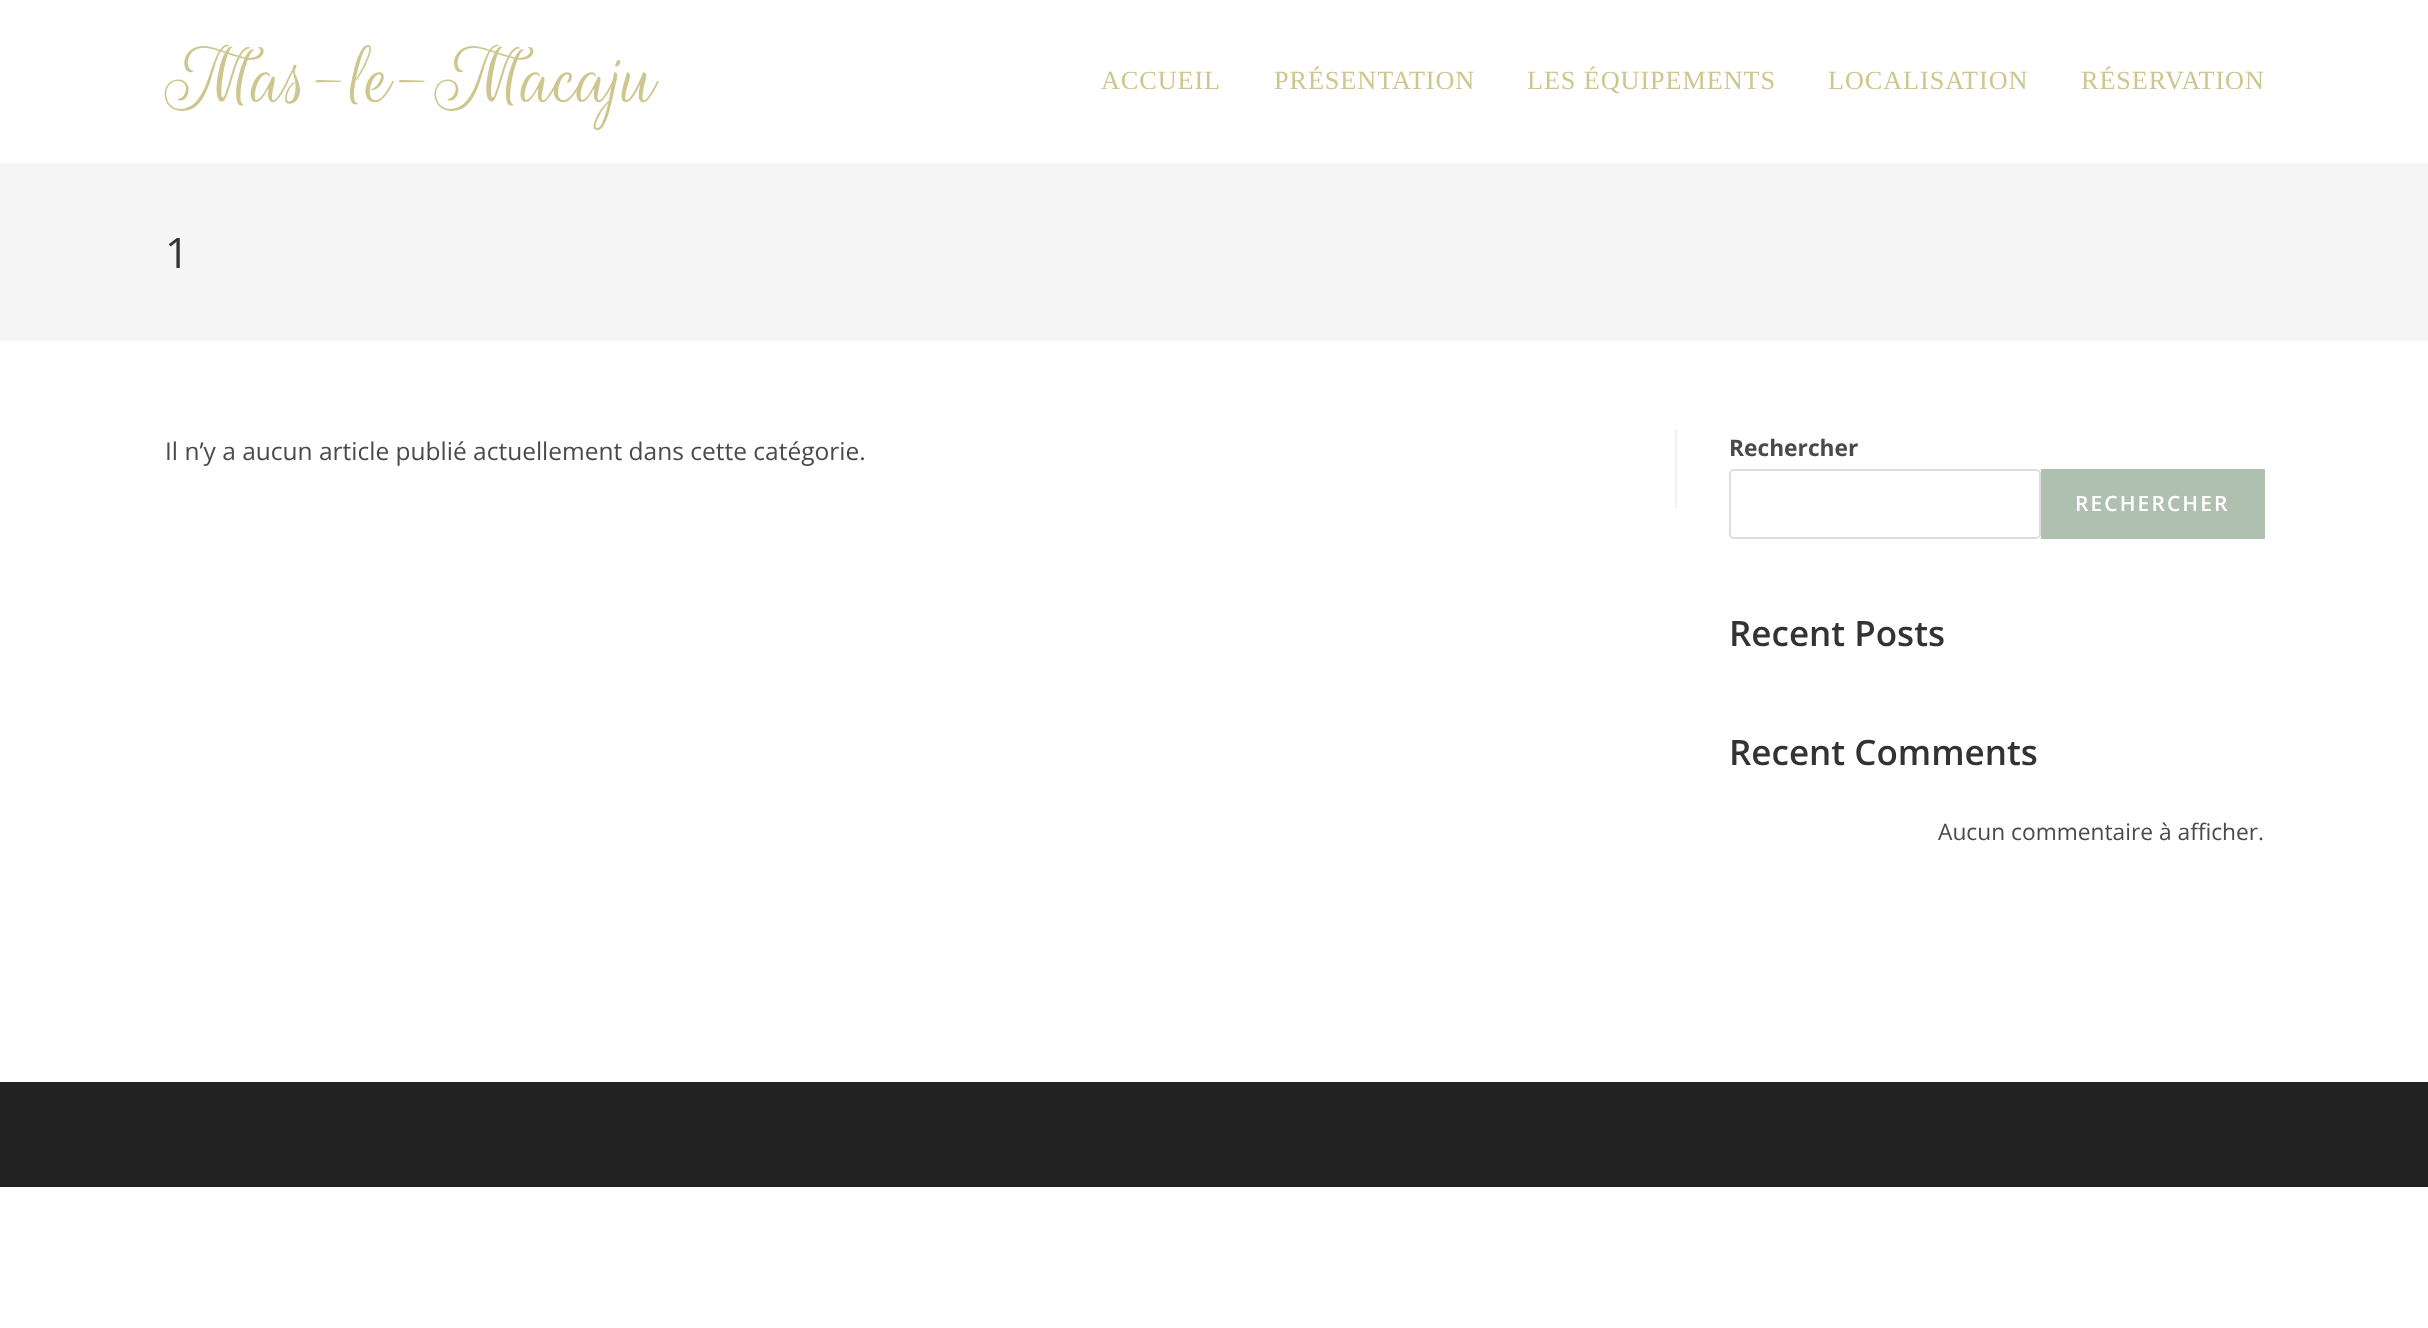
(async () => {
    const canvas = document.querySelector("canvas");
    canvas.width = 2428;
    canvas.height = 1328;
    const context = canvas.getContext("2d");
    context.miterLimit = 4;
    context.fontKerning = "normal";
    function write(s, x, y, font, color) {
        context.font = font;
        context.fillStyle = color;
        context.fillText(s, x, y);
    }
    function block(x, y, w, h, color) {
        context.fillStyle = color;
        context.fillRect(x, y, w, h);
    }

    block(0, 0, 2428, 1328, "rgb(255, 255, 255)");
    write("Mas-le-Macaju", 165, 102, "87.5px Rouge Script", "rgb(205, 198, 142)");
    context.letterSpacing = "0.9px";
    write("ACCUEIL", 1101, 89, "26.25px Liberation Serif", "rgb(205, 198, 142)");
    write("PRÉSENTATION", 1274, 89, "26.25px Liberation Serif", "rgb(205, 198, 142)");
    write("LES ÉQUIPEMENTS", 1527, 89, "26.25px Liberation Serif", "rgb(205, 198, 142)");
    write("LOCALISATION", 1828, 89, "26.25px Liberation Serif", "rgb(205, 198, 142)");
    write("RÉSERVATION", 2081, 89, "26.25px Liberation Serif", "rgb(205, 198, 142)");
    block(0, 163, 2428, 178, "rgb(245, 245, 245)");
    context.letterSpacing = "0px";
    write("1", 165, 268, "42px Open Sans", "rgb(51, 51, 51)");
    block(1675, 429, 2, 79, "rgb(241, 241, 241)");
    write("Il n’y a aucun article publié actuellement dans cette catégorie.", 165, 460, "24.5px Open Sans", "rgb(74, 74, 74)");
    write("Rechercher", 1729, 456, "bold 22.75px Open Sans", "rgb(74, 74, 74)");
    context.beginPath();
    context.roundRect(1730, 470, 310, 68, 4);
    context.strokeStyle = "rgb(221, 221, 221)";
    context.lineWidth = 2;
    context.stroke();
    block(2041, 469, 224, 70, "rgb(175, 191, 176)");
    context.letterSpacing = "2.1px";
    write("RECHERCHER", 2075, 511, "600 21px Open Sans", "rgb(255, 255, 255)");
    context.letterSpacing = "0px";
    write("Recent Posts", 1729, 646, "600 35px Open Sans", "rgb(51, 51, 51)");
    write("Recent Comments", 1729, 765, "600 35px Open Sans", "rgb(51, 51, 51)");
    write("Aucun commentaire à afficher.", 1938, 840, "22.75px Open Sans", "rgb(74, 74, 74)");
    block(0, 1082, 2428, 105, "rgb(34, 34, 34)");
})();
